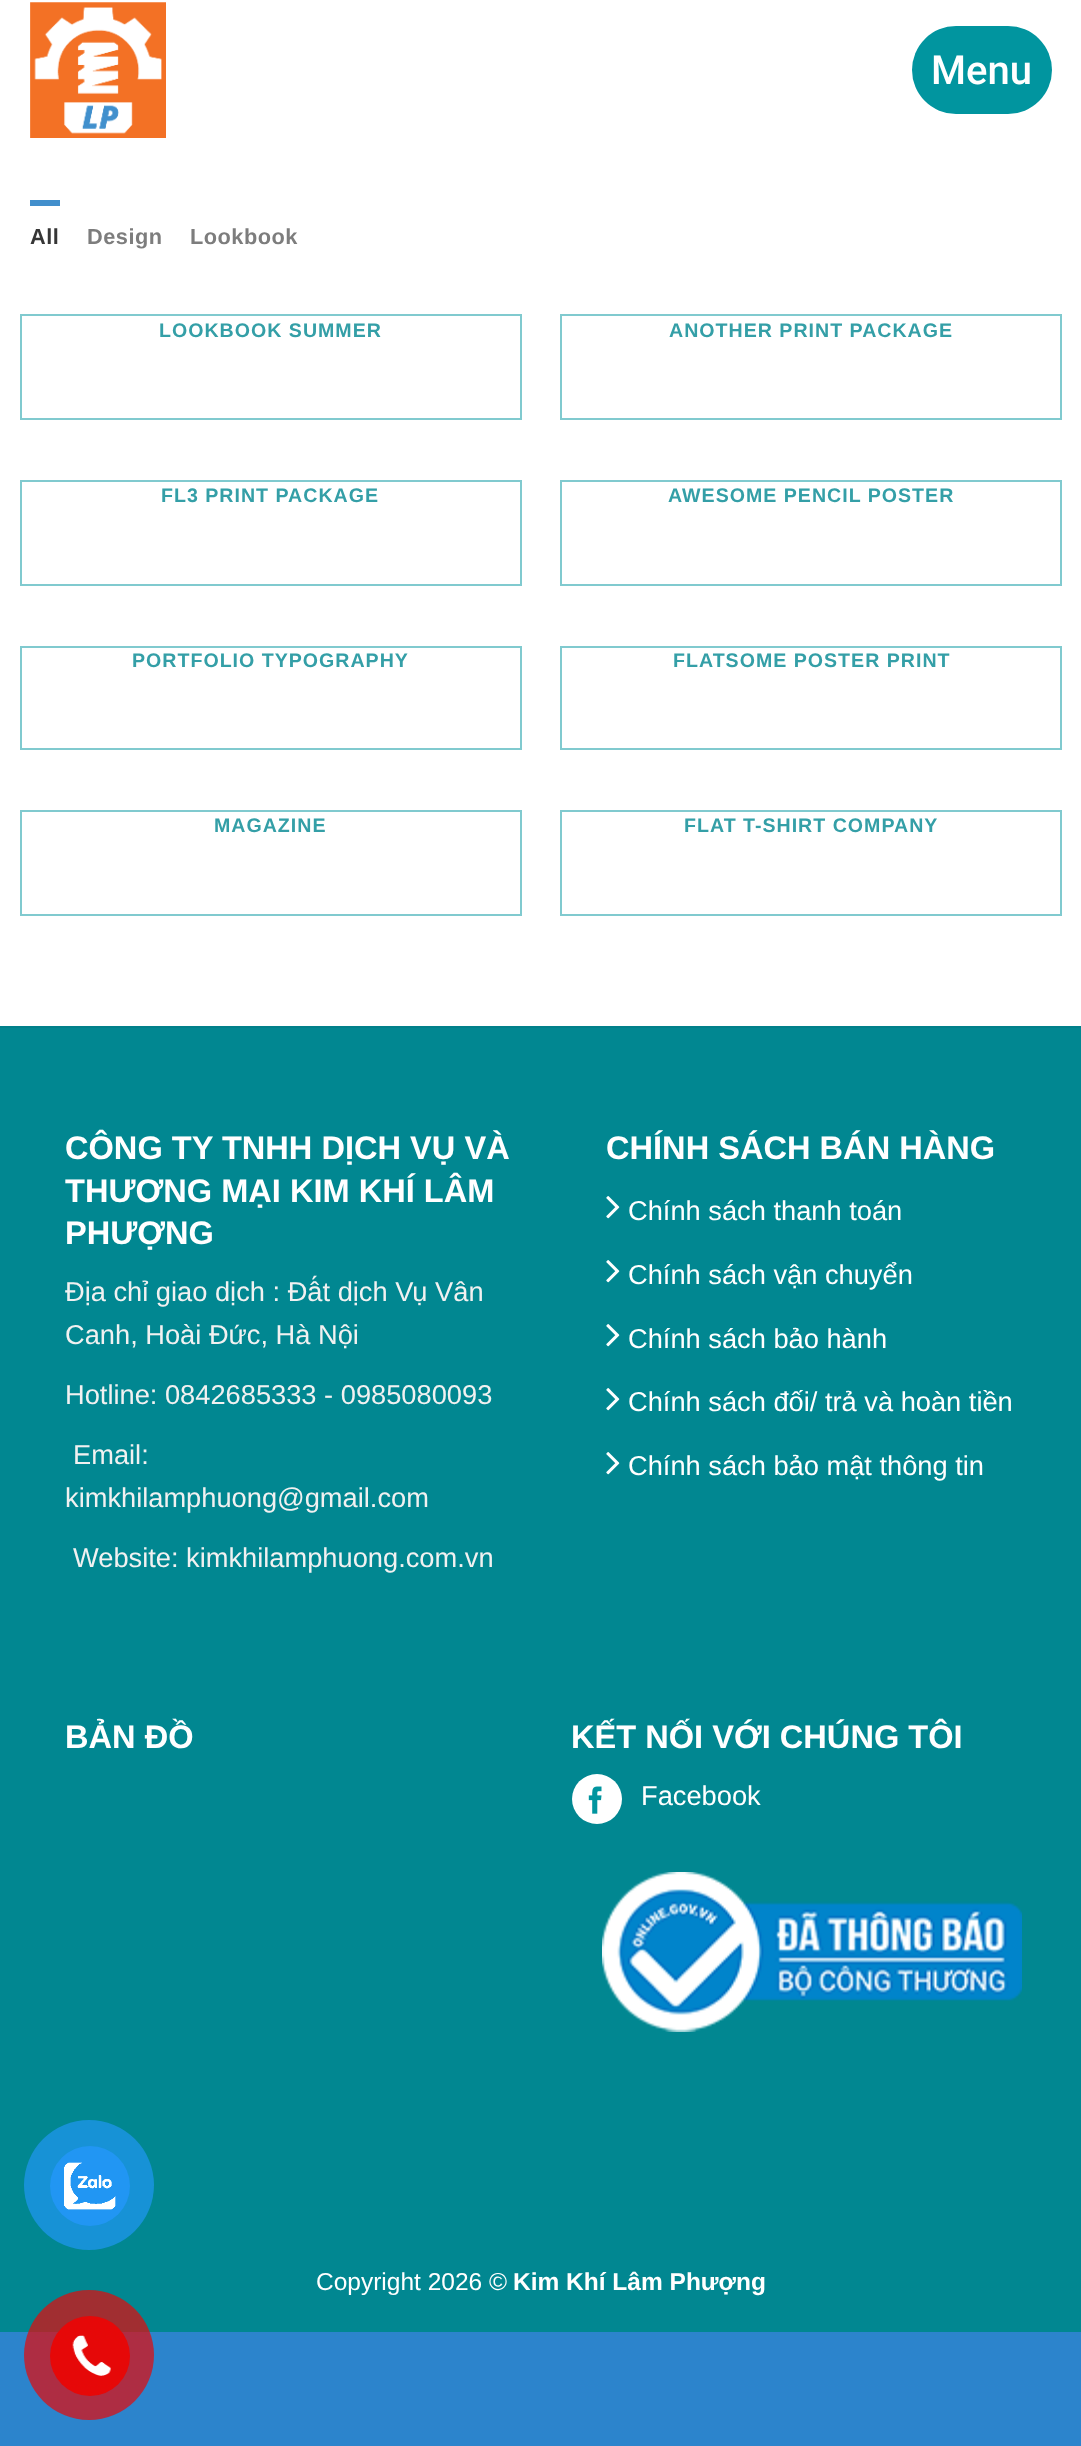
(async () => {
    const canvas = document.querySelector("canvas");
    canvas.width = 1081;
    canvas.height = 2446;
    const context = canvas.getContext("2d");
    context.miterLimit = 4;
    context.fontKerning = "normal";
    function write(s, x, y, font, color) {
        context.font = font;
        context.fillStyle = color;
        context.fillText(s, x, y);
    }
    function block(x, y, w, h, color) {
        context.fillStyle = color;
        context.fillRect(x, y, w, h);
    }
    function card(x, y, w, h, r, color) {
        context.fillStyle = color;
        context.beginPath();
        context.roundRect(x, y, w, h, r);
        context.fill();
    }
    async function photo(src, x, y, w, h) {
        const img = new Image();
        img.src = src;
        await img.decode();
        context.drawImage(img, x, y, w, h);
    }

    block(0, 0, 1081, 2446, "rgb(44, 132, 204)");
    block(0, 0, 1081, 1026, "rgb(255, 255, 255)");
    await photo("media/1.png", 30, 2, 136, 136);
    card(912, 26, 140, 88, 44, "rgb(1, 149, 159)");
    write("Menu", 931, 84, "500 40px Roboto", "rgb(255, 255, 255)");
    block(30, 200, 30, 6, "rgb(66, 143, 204)");
    context.letterSpacing = "0.5px";
    write("All", 30, 244, "bold 21.75px Liberation Sans", "rgb(54, 54, 54)");
    write("Design", 87, 244, "bold 21.75px Liberation Sans", "rgb(125, 125, 125)");
    write("Lookbook", 190, 244, "bold 21.75px Liberation Sans", "rgb(125, 125, 125)");
    context.strokeStyle = "rgb(128, 202, 207)";
    context.lineWidth = 2;
    context.strokeRect(21, 315, 500, 104);
    context.letterSpacing = "1px";
    write("LOOKBOOK SUMMER", 159, 337, "bold 19.6px Liberation Sans", "rgb(52, 159, 167)");
    context.strokeRect(561, 315, 500, 104);
    write("ANOTHER PRINT PACKAGE", 669, 337, "bold 19.6px Liberation Sans", "rgb(52, 159, 167)");
    context.strokeRect(21, 481, 500, 104);
    write("FL3 PRINT PACKAGE", 161, 502, "bold 19.6px Liberation Sans", "rgb(52, 159, 167)");
    context.strokeRect(561, 481, 500, 104);
    write("AWESOME PENCIL POSTER", 668, 502, "bold 19.6px Liberation Sans", "rgb(52, 159, 167)");
    context.strokeRect(21, 647, 500, 102);
    write("PORTFOLIO TYPOGRAPHY", 132, 667, "bold 19.6px Liberation Sans", "rgb(52, 159, 167)");
    context.strokeRect(561, 647, 500, 102);
    write("FLATSOME POSTER PRINT", 673, 667, "bold 19.6px Liberation Sans", "rgb(52, 159, 167)");
    context.strokeRect(21, 811, 500, 104);
    write("MAGAZINE", 214, 832, "bold 19.6px Liberation Sans", "rgb(52, 159, 167)");
    context.strokeRect(561, 811, 500, 104);
    write("FLAT T-SHIRT COMPANY", 684, 832, "bold 19.6px Liberation Sans", "rgb(52, 159, 167)");
    block(0, 1026, 1081, 2, "rgb(1, 128, 138)");
    block(0, 1028, 1081, 1304, "rgb(1, 135, 145)");
    context.letterSpacing = "0px";
    write("CÔNG TY TNHH DỊCH VỤ VÀ", 65, 1159, "bold 32.6px Liberation Sans", "rgb(255, 255, 255)");
    write("THƯƠNG MẠI KIM KHÍ LÂM", 65, 1202, "bold 32.6px Liberation Sans", "rgb(255, 255, 255)");
    write("PHƯỢNG", 65, 1244, "bold 32.6px Liberation Sans", "rgb(255, 255, 255)");
    write("Địa chỉ giao dịch : Đất dịch Vụ Vân", 65, 1301, "27.25px Liberation Sans", "rgb(241, 241, 241)");
    write("Canh, Hoài Đức, Hà Nội", 65, 1344, "27.25px Liberation Sans", "rgb(241, 241, 241)");
    write("Hotline: 0842685333 - 0985080093", 65, 1404, "27.25px Liberation Sans", "rgb(241, 241, 241)");
    write("Email:", 73, 1464, "27.25px Liberation Sans", "rgb(241, 241, 241)");
    write("kimkhilamphuong@gmail.com", 65, 1507, "27.25px Liberation Sans", "rgb(241, 241, 241)");
    write("Website: kimkhilamphuong.com.vn", 73, 1567, "27.25px Liberation Sans", "rgb(241, 241, 241)");
    write("CHÍNH SÁCH BÁN HÀNG", 606, 1159, "bold 32.6px Liberation Sans", "rgb(255, 255, 255)");
    await photo("media/2.png", 606, 1196, 14, 23);
    write("Chính sách thanh toán", 628, 1220, "27.25px Liberation Sans", "rgb(255, 255, 255)");
    await photo("media/2.png", 606, 1260, 14, 23);
    write("Chính sách vận chuyển", 628, 1284, "27.25px Liberation Sans", "rgb(255, 255, 255)");
    await photo("media/2.png", 606, 1324, 14, 23);
    write("Chính sách bảo hành", 628, 1348, "27.25px Liberation Sans", "rgb(255, 255, 255)");
    await photo("media/2.png", 606, 1388, 14, 23);
    write("Chính sách đối/ trả và hoàn tiền", 628, 1411, "27.25px Liberation Sans", "rgb(255, 255, 255)");
    await photo("media/2.png", 606, 1452, 14, 23);
    write("Chính sách bảo mật thông tin", 628, 1475, "27.25px Liberation Sans", "rgb(255, 255, 255)");
    write("BẢN ĐỒ", 65, 1748, "bold 32.6px Liberation Sans", "rgb(255, 255, 255)");
    write("KẾT NỐI VỚI CHÚNG TÔI", 571, 1748, "bold 32.6px Liberation Sans", "rgb(255, 255, 255)");
    context.beginPath();
    context.arc(597, 1799, 25, 0, Math.PI * 2);
    context.fill();
    await photo("media/3.png", 588, 1786, 14, 28);
    write("Facebook", 641, 1805, "27.25px Liberation Sans", "rgb(255, 255, 255)");
    await photo("media/4.png", 602, 1872, 420, 160);
    write("Copyright 2026 ©", 316, 2290, "24.5px Liberation Sans", "rgb(255, 255, 255)");
    write("Kim Khí Lâm Phượng", 513, 2290, "bold 24.5px Liberation Sans", "rgb(255, 255, 255)");
    context.fillStyle = "rgb(23, 146, 214)";
    context.beginPath();
    context.arc(89, 2185, 65, 0, Math.PI * 2);
    context.fill();
    context.fillStyle = "rgb(33, 150, 243)";
    context.beginPath();
    context.arc(90, 2186, 40, 0, Math.PI * 2);
    context.fill();
    await photo("media/5.png", 64, 2162, 52, 48);
    context.fillStyle = "rgba(230, 8, 8, 0.7)";
    context.beginPath();
    context.arc(89, 2355, 65, 0, Math.PI * 2);
    context.fill();
    context.fillStyle = "rgb(230, 8, 8)";
    context.beginPath();
    context.arc(90, 2356, 40, 0, Math.PI * 2);
    context.fill();
    await photo("media/6.png", 72, 2335, 39, 41);
})();
